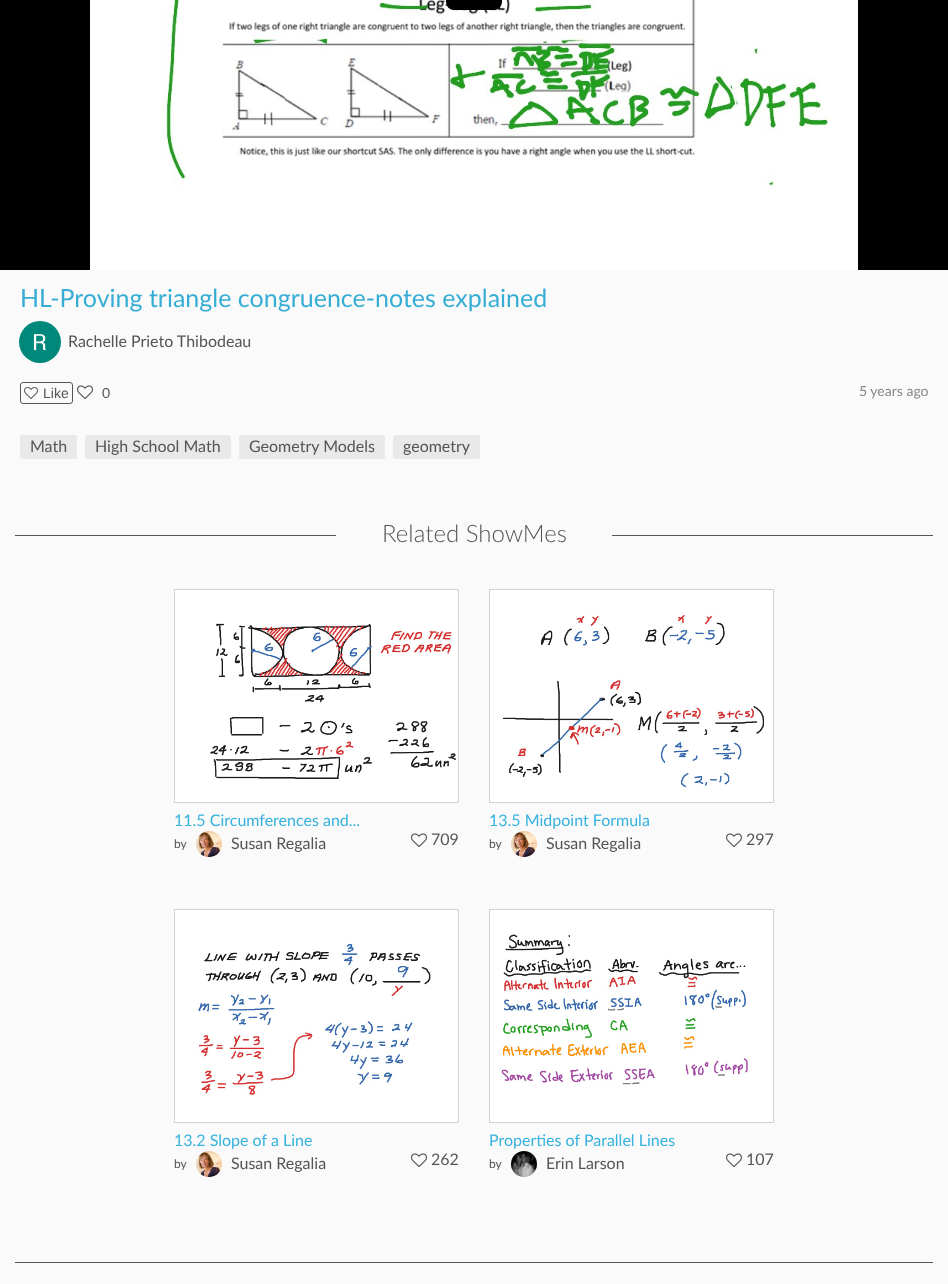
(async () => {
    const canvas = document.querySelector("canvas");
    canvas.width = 948;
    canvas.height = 1284;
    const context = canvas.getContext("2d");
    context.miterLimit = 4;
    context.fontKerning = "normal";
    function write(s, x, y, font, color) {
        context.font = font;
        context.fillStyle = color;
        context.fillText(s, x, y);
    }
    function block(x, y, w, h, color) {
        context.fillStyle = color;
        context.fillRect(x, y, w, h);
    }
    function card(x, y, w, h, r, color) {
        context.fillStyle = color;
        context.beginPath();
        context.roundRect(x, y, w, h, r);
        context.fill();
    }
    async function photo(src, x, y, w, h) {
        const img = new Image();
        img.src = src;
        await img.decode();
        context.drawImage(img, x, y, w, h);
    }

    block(0, 0, 948, 1284, "rgb(250, 250, 250)");
    block(0, 0, 948, 270, "rgb(0, 0, 0)");
    await photo("media/1.png", 90, 0, 768, 270);
    card(446, -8, 56, 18, 8, "rgb(0, 0, 0)");
    write("HL-Proving triangle congruence-notes explained", 20, 307, "25px Lato", "rgb(53, 173, 212)");
    await photo("media/2.png", 19, 321, 42, 42);
    write("Rachelle Prieto Thibodeau", 68, 347, "16px Lato", "rgb(85, 85, 85)");
    context.beginPath();
    context.roundRect(20.5, 382.5, 52, 21, 2.5);
    context.strokeStyle = "rgb(85, 85, 85)";
    context.stroke();
    await photo("media/3.png", 24, 387, 14, 12);
    write("Like", 43, 398, "14px Liberation Sans", "rgb(85, 85, 85)");
    await photo("media/4.png", 77, 385, 16, 14);
    write("0", 102, 398, "14px Lato", "rgb(85, 85, 85)");
    write("5 years ago", 859, 396, "14px Lato", "rgb(134, 134, 134)");
    card(20, 435, 57, 24, 2, "rgb(233, 233, 233)");
    write("Math", 30, 452, "16px Lato", "rgb(85, 85, 85)");
    card(85, 435, 146, 24, 2, "rgb(233, 233, 233)");
    write("High School Math", 95, 452, "16px Lato", "rgb(85, 85, 85)");
    card(239, 435, 146, 24, 2, "rgb(233, 233, 233)");
    write("Geometry Models", 249, 452, "16px Lato", "rgb(85, 85, 85)");
    card(393, 435, 87, 24, 2, "rgb(233, 233, 233)");
    write("geometry", 403, 452, "16px Lato", "rgb(85, 85, 85)");
    block(15, 535, 321, 1, "rgb(85, 85, 85)");
    write("Related ShowMes", 382, 542, "300 24px Lato", "rgb(85, 85, 85)");
    block(612, 535, 321, 1, "rgb(85, 85, 85)");
    context.strokeStyle = "rgb(211, 211, 211)";
    context.strokeRect(174.5, 589.5, 284, 213);
    await photo("media/5.png", 175, 590, 283, 212);
    write("11.5 Circumferences and...", 174, 826, "16px Lato", "rgb(53, 178, 222)");
    write("by", 174, 848, "12px Lato", "rgb(85, 85, 85)");
    await photo("media/6.png", 196, 831, 26, 26);
    write("Susan Regalia", 231, 849, "16px Lato", "rgb(85, 85, 85)");
    await photo("media/4.png", 411, 833, 16, 14);
    write("709", 431, 845, "16px Lato", "rgb(85, 85, 85)");
    context.strokeRect(489.5, 589.5, 284, 213);
    await photo("media/7.png", 490, 590, 283, 212);
    write("13.5 Midpoint Formula", 489, 826, "16px Lato", "rgb(53, 178, 222)");
    write("by", 489, 848, "12px Lato", "rgb(85, 85, 85)");
    await photo("media/8.png", 511, 831, 26, 26);
    write("Susan Regalia", 546, 849, "16px Lato", "rgb(85, 85, 85)");
    await photo("media/4.png", 726, 833, 16, 14);
    write("297", 746, 845, "16px Lato", "rgb(85, 85, 85)");
    context.strokeRect(174.5, 909.5, 284, 213);
    await photo("media/9.png", 175, 910, 283, 212);
    write("13.2 Slope of a Line", 174, 1146, "16px Lato", "rgb(53, 178, 222)");
    write("by", 174, 1168, "12px Lato", "rgb(85, 85, 85)");
    await photo("media/6.png", 196, 1151, 26, 26);
    write("Susan Regalia", 231, 1169, "16px Lato", "rgb(85, 85, 85)");
    await photo("media/4.png", 411, 1153, 16, 14);
    write("262", 431, 1165, "16px Lato", "rgb(85, 85, 85)");
    context.strokeRect(489.5, 909.5, 284, 213);
    await photo("media/10.png", 490, 910, 283, 212);
    write("Properties of Parallel Lines", 489, 1146, "16px Lato", "rgb(53, 178, 222)");
    write("by", 489, 1168, "12px Lato", "rgb(85, 85, 85)");
    await photo("media/11.png", 511, 1151, 26, 26);
    write("Erin Larson", 546, 1169, "16px Lato", "rgb(85, 85, 85)");
    await photo("media/4.png", 726, 1153, 16, 14);
    write("107", 746, 1165, "16px Lato", "rgb(85, 85, 85)");
    block(15, 1262, 918, 1, "rgb(85, 85, 85)");
})();
